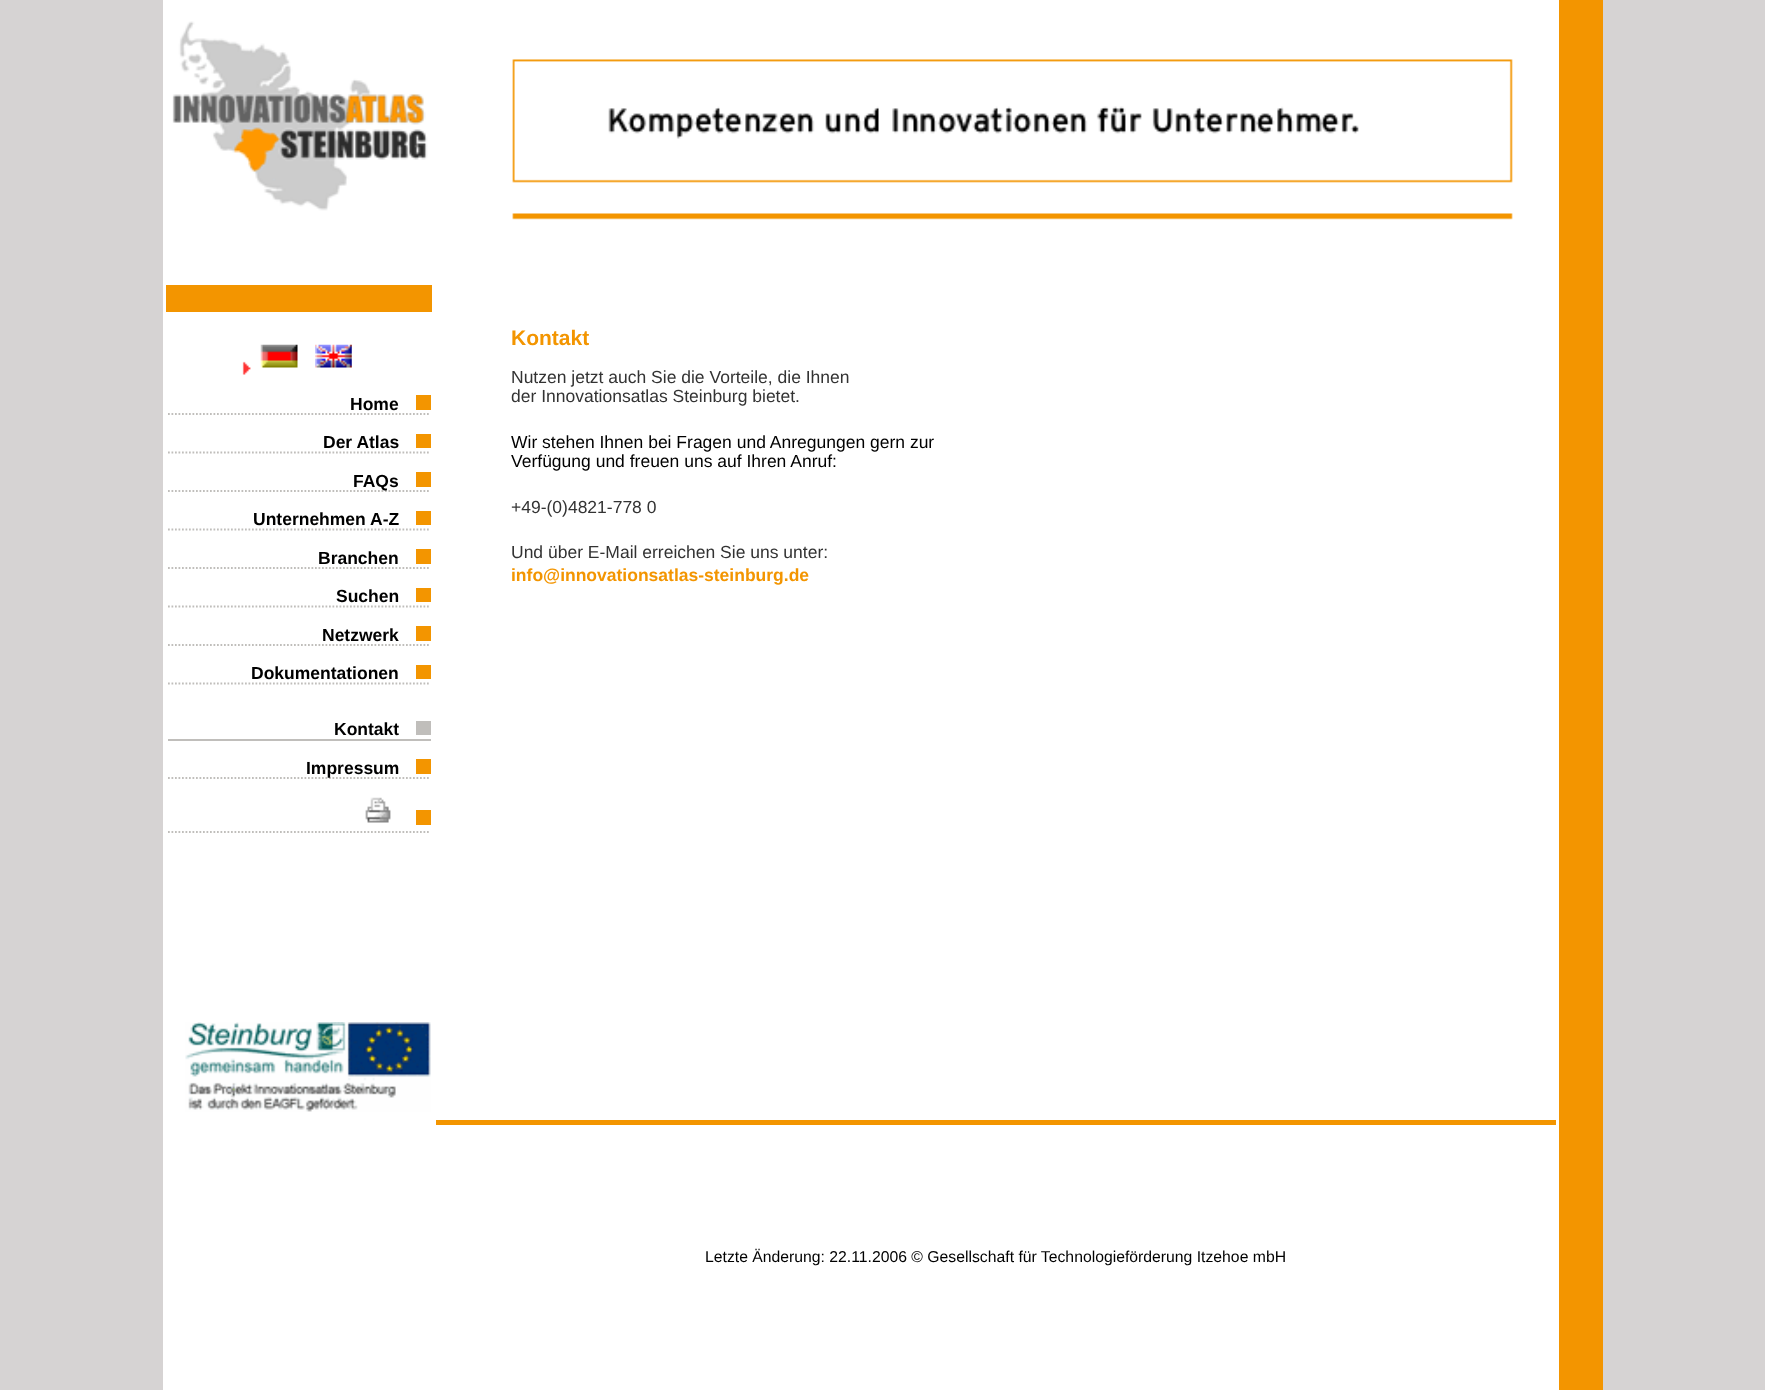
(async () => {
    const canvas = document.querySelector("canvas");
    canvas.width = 1765;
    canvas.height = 1390;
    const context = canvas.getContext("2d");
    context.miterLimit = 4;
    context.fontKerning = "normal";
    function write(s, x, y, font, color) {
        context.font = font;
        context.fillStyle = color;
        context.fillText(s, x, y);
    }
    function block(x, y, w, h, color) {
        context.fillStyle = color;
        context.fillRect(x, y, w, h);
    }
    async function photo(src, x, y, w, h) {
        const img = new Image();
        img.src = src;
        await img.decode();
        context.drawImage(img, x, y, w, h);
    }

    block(0, 0, 1765, 1390, "rgb(214, 211, 211)");
    block(163, 0, 1396, 1390, "rgb(255, 255, 255)");
    block(1559, 0, 44, 1390, "rgb(243, 149, 0)");
    await photo("media/1.png", 172, 21, 256, 190);
    await photo("media/2.png", 512, 59, 1001, 161);
    block(166, 285, 266, 27, "rgb(243, 149, 0)");
    await photo("media/3.png", 242, 361, 9, 14);
    await photo("media/4.png", 260, 344, 38, 24);
    await photo("media/5.png", 315, 344, 37, 24);
    context.beginPath();
    context.moveTo(168, 414);
    context.lineTo(430.5, 414);
    context.strokeStyle = "rgb(192, 190, 187)";
    context.lineWidth = 1.8;
    context.setLineDash([1.75, 1.75]);
    context.stroke();
    write("Home", 350, 410, "bold 17.5px Liberation Sans", "rgb(0, 0, 0)");
    block(416, 395, 15, 15, "rgb(243, 149, 0)");
    context.beginPath();
    context.moveTo(168, 452.5);
    context.lineTo(430.5, 452.5);
    context.stroke();
    write("Der Atlas", 323, 448, "bold 17.5px Liberation Sans", "rgb(0, 0, 0)");
    block(416, 434, 15, 14, "rgb(243, 149, 0)");
    context.beginPath();
    context.moveTo(168, 491);
    context.lineTo(430.5, 491);
    context.stroke();
    write("FAQs", 353, 487, "bold 17.5px Liberation Sans", "rgb(0, 0, 0)");
    block(416, 472, 15, 15, "rgb(243, 149, 0)");
    context.beginPath();
    context.moveTo(168, 529.5);
    context.lineTo(430.5, 529.5);
    context.stroke();
    write("Unternehmen A-Z", 253, 525, "bold 17.5px Liberation Sans", "rgb(0, 0, 0)");
    block(416, 511, 15, 14, "rgb(243, 149, 0)");
    context.beginPath();
    context.moveTo(168, 568);
    context.lineTo(430.5, 568);
    context.stroke();
    write("Branchen", 318, 564, "bold 17.5px Liberation Sans", "rgb(0, 0, 0)");
    block(416, 549, 15, 15, "rgb(243, 149, 0)");
    context.beginPath();
    context.moveTo(168, 606.5);
    context.lineTo(430.5, 606.5);
    context.stroke();
    write("Suchen", 336, 602, "bold 17.5px Liberation Sans", "rgb(0, 0, 0)");
    block(416, 588, 15, 14, "rgb(243, 149, 0)");
    context.beginPath();
    context.moveTo(168, 645);
    context.lineTo(430.5, 645);
    context.stroke();
    write("Netzwerk", 322, 641, "bold 17.5px Liberation Sans", "rgb(0, 0, 0)");
    block(416, 626, 15, 15, "rgb(243, 149, 0)");
    context.beginPath();
    context.moveTo(168, 683.5);
    context.lineTo(430.5, 683.5);
    context.stroke();
    write("Dokumentationen", 251, 679, "bold 17.5px Liberation Sans", "rgb(0, 0, 0)");
    block(416, 665, 15, 14, "rgb(243, 149, 0)");
    block(168, 739, 263, 2, "rgb(192, 190, 187)");
    write("Kontakt", 334, 735, "bold 17.5px Liberation Sans", "rgb(0, 0, 0)");
    block(416, 721, 15, 14, "rgb(192, 190, 187)");
    context.beginPath();
    context.moveTo(168, 778);
    context.lineTo(430.5, 778);
    context.stroke();
    write("Impressum", 306, 774, "bold 17.5px Liberation Sans", "rgb(0, 0, 0)");
    block(416, 759, 15, 15, "rgb(243, 149, 0)");
    context.beginPath();
    context.moveTo(168, 832);
    context.lineTo(430.5, 832);
    context.stroke();
    await photo("media/6.png", 365, 797, 26, 26);
    block(416, 810, 15, 15, "rgb(243, 149, 0)");
    await photo("media/7.png", 185, 1022, 246, 90);
    write("Kontakt", 511, 345, "bold 21px Liberation Sans", "rgb(243, 149, 0)");
    write("Nutzen jetzt auch Sie die Vorteile, die Ihnen", 511, 383, "17.5px Liberation Sans", "rgb(51, 51, 51)");
    write("der Innovationsatlas Steinburg bietet.", 511, 402, "17.5px Liberation Sans", "rgb(51, 51, 51)");
    write("Wir stehen Ihnen bei Fragen und Anregungen gern zur", 511, 448, "17.5px Liberation Sans", "rgb(0, 0, 0)");
    write("Verfügung und freuen uns auf Ihren Anruf:", 511, 467, "17.5px Liberation Sans", "rgb(0, 0, 0)");
    write("+49-(0)4821-778 0", 511, 513, "17.5px Liberation Sans", "rgb(51, 51, 51)");
    write("Und über E-Mail erreichen Sie uns unter:", 511, 558, "17.5px Liberation Sans", "rgb(51, 51, 51)");
    write("info@innovationsatlas-steinburg.de", 511, 581, "bold 17.5px Liberation Sans", "rgb(243, 149, 0)");
    block(436, 1120, 1120, 5, "rgb(243, 149, 0)");
    write("Letzte Änderung: 22.11.2006 © Gesellschaft für Technologieförderung Itzehoe mbH", 705, 1262, "15.75px Liberation Sans", "rgb(0, 0, 0)");
})();
